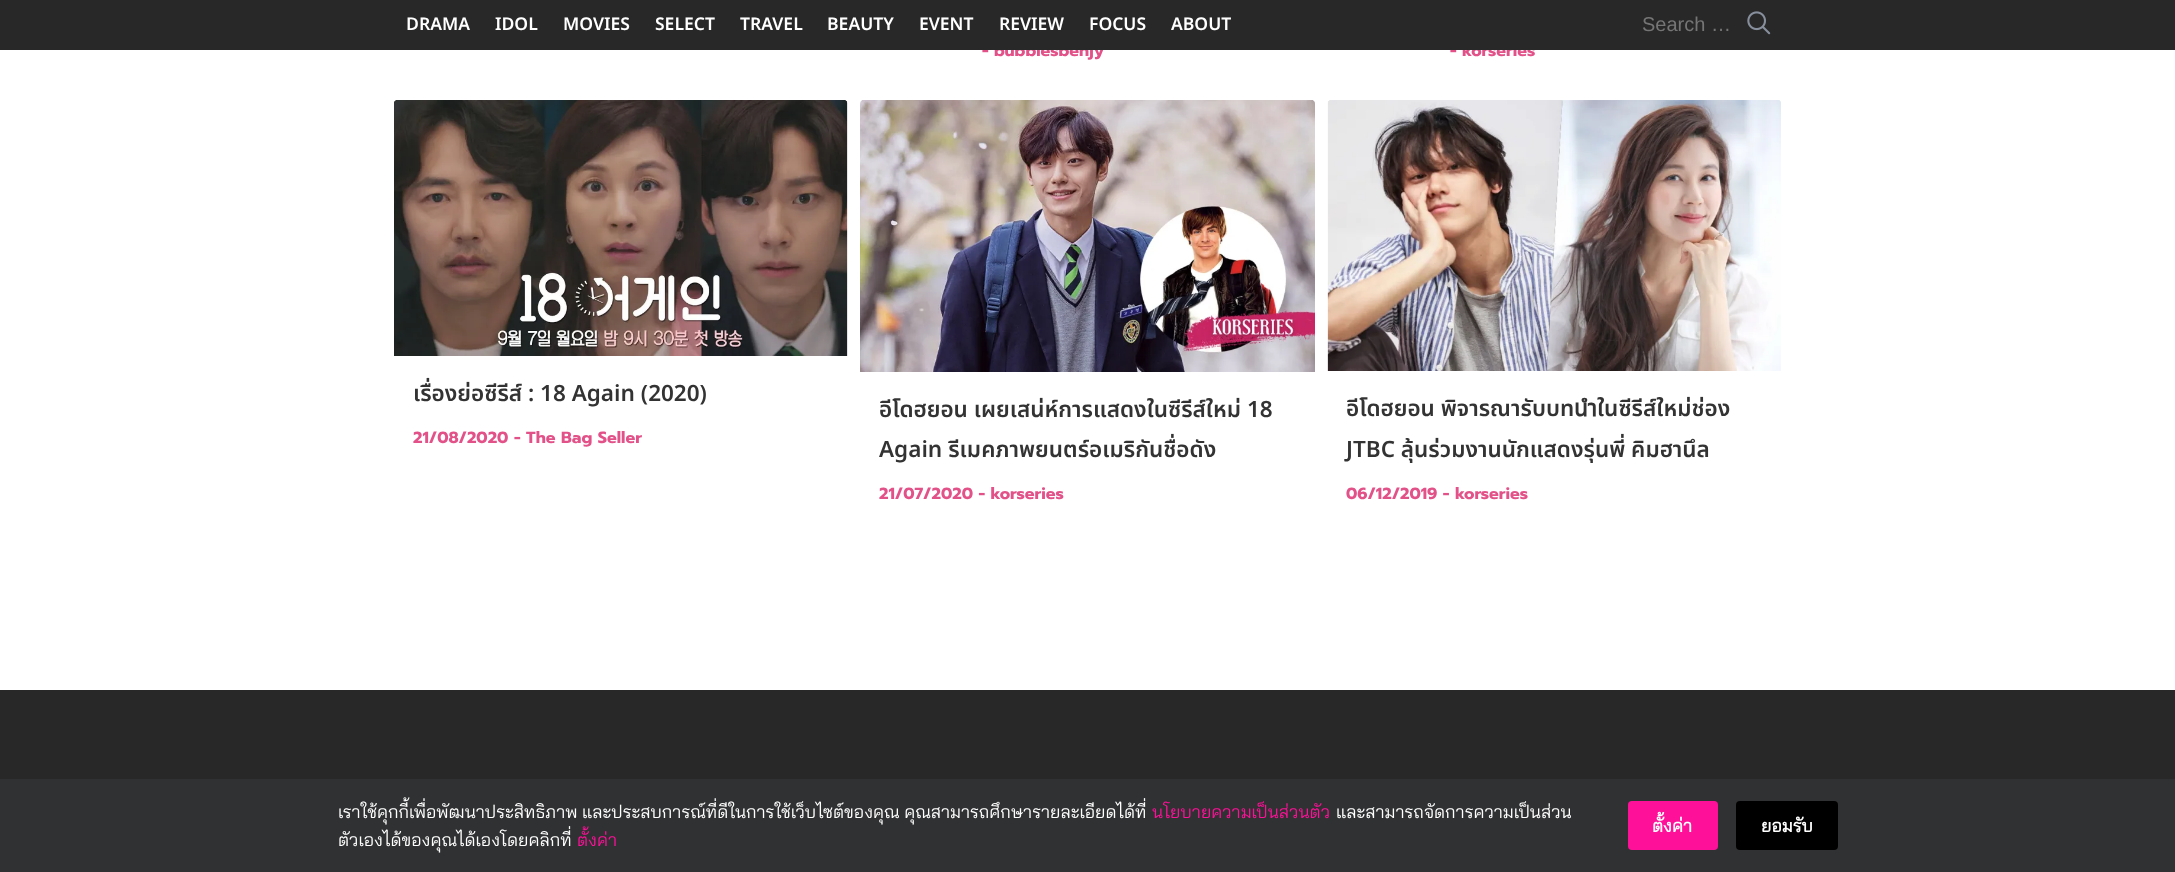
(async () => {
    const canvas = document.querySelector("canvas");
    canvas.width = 2175;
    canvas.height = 872;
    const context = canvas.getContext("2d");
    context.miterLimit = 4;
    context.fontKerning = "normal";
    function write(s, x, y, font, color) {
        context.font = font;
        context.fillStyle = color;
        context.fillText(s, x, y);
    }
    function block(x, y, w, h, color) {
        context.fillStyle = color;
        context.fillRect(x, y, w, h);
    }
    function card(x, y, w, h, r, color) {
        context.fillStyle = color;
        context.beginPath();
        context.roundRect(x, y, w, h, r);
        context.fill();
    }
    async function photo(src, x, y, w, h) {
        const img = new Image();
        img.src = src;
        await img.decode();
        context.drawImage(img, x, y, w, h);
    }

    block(0, 0, 2175, 872, "rgb(255, 255, 255)");
    write("- bubblesbenjy", 982, 56, "bold 16.25px Prompt", "rgb(226, 82, 137)");
    write("- korseries", 1450, 56, "bold 16.25px Prompt", "rgb(226, 82, 137)");
    block(0, 0, 2175, 50, "rgb(40, 40, 40)");
    write("DRAMA", 406, 30, "600 17.5px Noto Sans Thai", "rgb(255, 255, 255)");
    write("IDOL", 495, 30, "600 17.5px Noto Sans Thai", "rgb(255, 255, 255)");
    write("MOVIES", 563, 30, "600 17.5px Noto Sans Thai", "rgb(255, 255, 255)");
    write("SELECT", 655, 30, "600 17.5px Noto Sans Thai", "rgb(255, 255, 255)");
    write("TRAVEL", 740, 30, "600 17.5px Noto Sans Thai", "rgb(255, 255, 255)");
    write("BEAUTY", 827, 30, "600 17.5px Noto Sans Thai", "rgb(255, 255, 255)");
    write("EVENT", 919, 30, "600 17.5px Noto Sans Thai", "rgb(255, 255, 255)");
    write("REVIEW", 999, 30, "600 17.5px Noto Sans Thai", "rgb(255, 255, 255)");
    write("FOCUS", 1089, 30, "600 17.5px Noto Sans Thai", "rgb(255, 255, 255)");
    write("ABOUT", 1171, 30, "600 17.5px Noto Sans Thai", "rgb(255, 255, 255)");
    write("Search …", 1642, 31, "20px Liberation Sans", "rgb(117, 117, 117)");
    await photo("media/1.png", 1747, 11, 24, 24);
    await photo("media/2.png", 394, 100, 454, 256);
    write("เรื่องย่อซีรีส์ : 18 Again (2020)", 413, 401, "600 22.5px Noto Sans Thai", "rgb(51, 51, 51)");
    write("21/08/2020 - The Bag Seller", 413, 443, "bold 16.25px Prompt", "rgb(226, 82, 137)");
    await photo("media/3.png", 860, 100, 455, 272);
    write("อีโดฮยอน เผยเสน่ห์การแสดงในซีรีส์ใหม่ 18", 879, 417, "600 22.5px Noto Sans Thai", "rgb(51, 51, 51)");
    write("Again รีเมคภาพยนตร์อเมริกันชื่อดัง", 879, 457, "600 22.5px Noto Sans Thai", "rgb(51, 51, 51)");
    write("21/07/2020 - korseries", 879, 499, "bold 16.25px Prompt", "rgb(226, 82, 137)");
    await photo("media/4.png", 1327, 100, 454, 271);
    write("อีโดฮยอน พิจารณารับบทนำในซีรีส์ใหม่ช่อง", 1346, 416, "600 22.5px Noto Sans Thai", "rgb(51, 51, 51)");
    write("JTBC ลุ้นร่วมงานนักแสดงรุ่นพี่ คิมฮานึล", 1346, 457, "600 22.5px Noto Sans Thai", "rgb(51, 51, 51)");
    write("06/12/2019 - korseries", 1346, 499, "bold 16.25px Prompt", "rgb(226, 82, 137)");
    block(0, 690, 2175, 89, "rgb(40, 40, 40)");
    block(0, 779, 2175, 93, "rgb(48, 49, 51)");
    write("เราใช้คุกกี้เพื่อพัฒนาประสิทธิภาพ และประสบการณ์ที่ดีในการใช้เว็บไซต์ของคุณ คุณสามารถศึกษารายละเอียดได้ที่", 338, 818, "17.5px Bai Jamjuree", "rgb(255, 255, 255)");
    write("นโยบายความเป็นส่วนตัว", 1152, 818, "17.5px Bai Jamjuree", "rgb(255, 16, 153)");
    write("และสามารถจัดการความเป็นส่วน", 1336, 818, "17.5px Bai Jamjuree", "rgb(255, 255, 255)");
    write("ตัวเองได้ของคุณได้เองโดยคลิกที่", 338, 846, "17.5px Bai Jamjuree", "rgb(255, 255, 255)");
    write("ตั้งค่า", 577, 846, "17.5px Bai Jamjuree", "rgb(255, 16, 153)");
    card(1628, 801, 90, 49, 4, "rgb(255, 16, 153)");
    write("ตั้งค่า", 1652, 832, "bold 17.5px Bai Jamjuree", "rgb(255, 255, 255)");
    card(1736, 801, 102, 49, 4, "rgb(0, 0, 0)");
    write("ยอมรับ", 1761, 832, "bold 17.5px Bai Jamjuree", "rgb(255, 255, 255)");
})();
